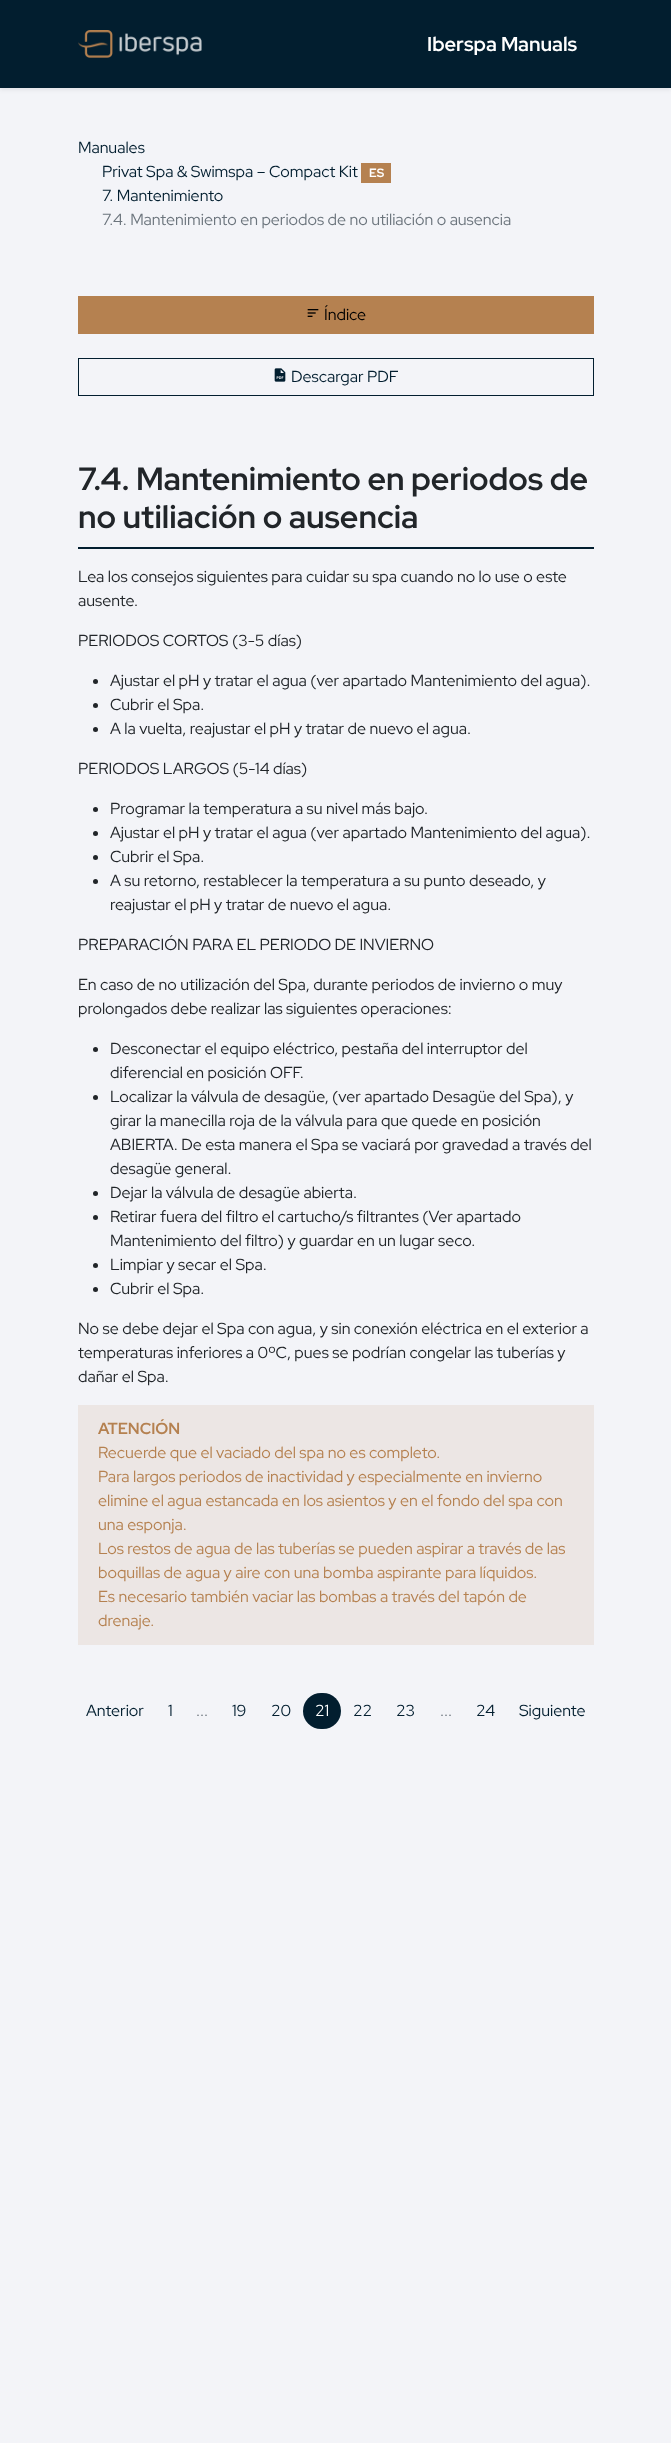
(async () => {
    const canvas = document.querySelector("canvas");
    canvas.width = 671;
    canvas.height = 2443;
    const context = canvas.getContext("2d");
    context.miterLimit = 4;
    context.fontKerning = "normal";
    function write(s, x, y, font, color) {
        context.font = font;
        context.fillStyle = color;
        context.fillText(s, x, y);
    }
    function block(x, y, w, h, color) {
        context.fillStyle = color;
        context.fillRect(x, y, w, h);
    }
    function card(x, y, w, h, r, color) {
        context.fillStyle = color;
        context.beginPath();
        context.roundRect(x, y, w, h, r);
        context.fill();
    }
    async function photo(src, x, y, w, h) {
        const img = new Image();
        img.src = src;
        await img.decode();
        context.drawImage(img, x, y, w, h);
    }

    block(0, 0, 671, 2443, "rgb(243, 244, 248)");
    context.fillStyle = "rgba(0, 0, 0, 0.07)";
    context.filter = "blur(2px)";
    context.beginPath();
    context.rect(0, 2, 671, 88);
    context.fill();
    context.filter = "none";
    block(0, 0, 671, 88, "rgb(2, 30, 47)");
    await photo("media/1.png", 78, 30, 124, 28);
    write("Iberspa Manuals", 427, 51, "bold 20px Red Hat Display", "rgb(255, 255, 255)");
    write("Manuales", 78, 153, "16px Red Hat Display", "rgb(2, 30, 47)");
    write("Privat Spa & Swimspa – Compact Kit", 102, 177, "16px Red Hat Display", "rgb(2, 30, 47)");
    block(361, 163, 30, 20, "rgb(181, 129, 80)");
    write("ES", 369, 177, "bold 12px Red Hat Display", "rgb(255, 255, 255)");
    write("7. Mantenimiento", 102, 201, "16px Red Hat Display", "rgb(2, 30, 47)");
    write("7.4. Mantenimiento en periodos de no utiliación o ausencia", 102, 225, "16px Red Hat Display", "rgb(108, 117, 125)");
    block(78, 296, 516, 38, "rgb(181, 129, 80)");
    await photo("media/2.png", 307, 309, 12, 8);
    write("Índice", 324, 320, "16px Red Hat Display", "rgb(0, 0, 0)");
    context.strokeStyle = "rgb(2, 30, 47)";
    context.strokeRect(78.5, 358.5, 515, 37);
    await photo("media/3.png", 274, 368, 12, 14);
    write("Descargar PDF", 291, 382, "16px Red Hat Display", "rgb(2, 30, 47)");
    block(78, 547, 516, 2, "rgb(2, 30, 47)");
    write("7.4. Mantenimiento en periodos de", 78, 490, "bold 32px Red Hat Display", "rgb(33, 37, 41)");
    write("no utiliación o ausencia", 78, 528, "bold 32px Red Hat Display", "rgb(33, 37, 41)");
    write("Lea los consejos siguientes para cuidar su spa cuando no lo use o este", 78, 582, "16px Red Hat Display", "rgb(33, 37, 41)");
    write("ausente.", 78, 606, "16px Red Hat Display", "rgb(33, 37, 41)");
    write("PERIODOS CORTOS (3-5 días)", 78, 646, "16px Red Hat Display", "rgb(33, 37, 41)");
    context.beginPath();
    context.arc(95.5, 681.5, 2.5, 0, Math.PI * 2);
    context.fill();
    write("Ajustar el pH y tratar el agua (ver apartado Mantenimiento del agua).", 110, 686, "16px Red Hat Display", "rgb(33, 37, 41)");
    context.beginPath();
    context.arc(95.5, 705.5, 2.5, 0, Math.PI * 2);
    context.fill();
    write("Cubrir el Spa.", 110, 710, "16px Red Hat Display", "rgb(33, 37, 41)");
    context.beginPath();
    context.arc(95.5, 729.5, 2.5, 0, Math.PI * 2);
    context.fill();
    write("A la vuelta, reajustar el pH y tratar de nuevo el agua.", 110, 734, "16px Red Hat Display", "rgb(33, 37, 41)");
    write("PERIODOS LARGOS (5-14 días)", 78, 774, "16px Red Hat Display", "rgb(33, 37, 41)");
    context.beginPath();
    context.arc(95.5, 809.5, 2.5, 0, Math.PI * 2);
    context.fill();
    write("Programar la temperatura a su nivel más bajo.", 110, 814, "16px Red Hat Display", "rgb(33, 37, 41)");
    context.beginPath();
    context.arc(95.5, 833.5, 2.5, 0, Math.PI * 2);
    context.fill();
    write("Ajustar el pH y tratar el agua (ver apartado Mantenimiento del agua).", 110, 838, "16px Red Hat Display", "rgb(33, 37, 41)");
    context.beginPath();
    context.arc(95.5, 857.5, 2.5, 0, Math.PI * 2);
    context.fill();
    write("Cubrir el Spa.", 110, 862, "16px Red Hat Display", "rgb(33, 37, 41)");
    context.beginPath();
    context.arc(95.5, 881.5, 2.5, 0, Math.PI * 2);
    context.fill();
    write("A su retorno, restablecer la temperatura a su punto deseado, y", 110, 886, "16px Red Hat Display", "rgb(33, 37, 41)");
    write("reajustar el pH y tratar de nuevo el agua.", 110, 910, "16px Red Hat Display", "rgb(33, 37, 41)");
    write("PREPARACIÓN PARA EL PERIODO DE INVIERNO", 78, 950, "16px Red Hat Display", "rgb(33, 37, 41)");
    write("En caso de no utilización del Spa, durante periodos de invierno o muy", 78, 990, "16px Red Hat Display", "rgb(33, 37, 41)");
    write("prolongados debe realizar las siguientes operaciones:", 78, 1014, "16px Red Hat Display", "rgb(33, 37, 41)");
    context.beginPath();
    context.arc(95.5, 1049.5, 2.5, 0, Math.PI * 2);
    context.fill();
    write("Desconectar el equipo eléctrico, pestaña del interruptor del", 110, 1054, "16px Red Hat Display", "rgb(33, 37, 41)");
    write("diferencial en posición OFF.", 110, 1078, "16px Red Hat Display", "rgb(33, 37, 41)");
    context.beginPath();
    context.arc(95.5, 1097.5, 2.5, 0, Math.PI * 2);
    context.fill();
    write("Localizar la válvula de desagüe, (ver apartado Desagüe del Spa), y", 110, 1102, "16px Red Hat Display", "rgb(33, 37, 41)");
    write("girar la manecilla roja de la válvula para que quede en posición", 110, 1126, "16px Red Hat Display", "rgb(33, 37, 41)");
    write("ABIERTA. De esta manera el Spa se vaciará por gravedad a través del", 110, 1150, "16px Red Hat Display", "rgb(33, 37, 41)");
    write("desagüe general.", 110, 1174, "16px Red Hat Display", "rgb(33, 37, 41)");
    context.beginPath();
    context.arc(95.5, 1193.5, 2.5, 0, Math.PI * 2);
    context.fill();
    write("Dejar la válvula de desagüe abierta.", 110, 1198, "16px Red Hat Display", "rgb(33, 37, 41)");
    context.beginPath();
    context.arc(95.5, 1217.5, 2.5, 0, Math.PI * 2);
    context.fill();
    write("Retirar fuera del filtro el cartucho/s filtrantes (Ver apartado", 110, 1222, "16px Red Hat Display", "rgb(33, 37, 41)");
    write("Mantenimiento del filtro) y guardar en un lugar seco.", 110, 1246, "16px Red Hat Display", "rgb(33, 37, 41)");
    context.beginPath();
    context.arc(95.5, 1265.5, 2.5, 0, Math.PI * 2);
    context.fill();
    write("Limpiar y secar el Spa.", 110, 1270, "16px Red Hat Display", "rgb(33, 37, 41)");
    context.beginPath();
    context.arc(95.5, 1289.5, 2.5, 0, Math.PI * 2);
    context.fill();
    write("Cubrir el Spa.", 110, 1294, "16px Red Hat Display", "rgb(33, 37, 41)");
    write("No se debe dejar el Spa con agua, y sin conexión eléctrica en el exterior a", 78, 1334, "16px Red Hat Display", "rgb(33, 37, 41)");
    write("temperaturas inferiores a 0ºC, pues se podrían congelar las tuberías y", 78, 1358, "16px Red Hat Display", "rgb(33, 37, 41)");
    write("dañar el Spa.", 78, 1382, "16px Red Hat Display", "rgb(33, 37, 41)");
    block(78, 1405, 516, 240, "rgb(236, 230, 228)");
    write("ATENCIÓN", 98, 1434, "bold 16px Red Hat Display", "rgb(181, 129, 80)");
    write("Recuerde que el vaciado del spa no es completo.", 98, 1458, "16px Red Hat Display", "rgb(181, 129, 80)");
    write("Para largos periodos de inactividad y especialmente en invierno", 98, 1482, "16px Red Hat Display", "rgb(181, 129, 80)");
    write("elimine el agua estancada en los asientos y en el fondo del spa con", 98, 1506, "16px Red Hat Display", "rgb(181, 129, 80)");
    write("una esponja.", 98, 1530, "16px Red Hat Display", "rgb(181, 129, 80)");
    write("Los restos de agua de las tuberías se pueden aspirar a través de las", 98, 1554, "16px Red Hat Display", "rgb(181, 129, 80)");
    write("boquillas de agua y aire con una bomba aspirante para líquidos.", 98, 1578, "16px Red Hat Display", "rgb(181, 129, 80)");
    write("Es necesario también vaciar las bombas a través del tapón de", 98, 1602, "16px Red Hat Display", "rgb(181, 129, 80)");
    write("drenaje.", 98, 1626, "16px Red Hat Display", "rgb(181, 129, 80)");
    write("Anterior", 86, 1716, "16px Red Hat Display", "rgb(2, 30, 47)");
    write("1", 168, 1716, "16px Red Hat Display", "rgb(2, 30, 47)");
    write("...", 196, 1716, "16px Red Hat Display", "rgb(108, 117, 125)");
    write("19", 232, 1716, "16px Red Hat Display", "rgb(2, 30, 47)");
    write("20", 271, 1716, "16px Red Hat Display", "rgb(2, 30, 47)");
    card(303, 1693, 38, 36, 18, "rgb(2, 30, 47)");
    write("21", 315, 1716, "16px Red Hat Display", "rgb(255, 255, 255)");
    write("22", 353, 1716, "16px Red Hat Display", "rgb(2, 30, 47)");
    write("23", 396, 1716, "16px Red Hat Display", "rgb(2, 30, 47)");
    write("...", 440, 1716, "16px Red Hat Display", "rgb(108, 117, 125)");
    write("24", 476, 1716, "16px Red Hat Display", "rgb(2, 30, 47)");
    write("Siguiente", 519, 1716, "16px Red Hat Display", "rgb(2, 30, 47)");
})();
